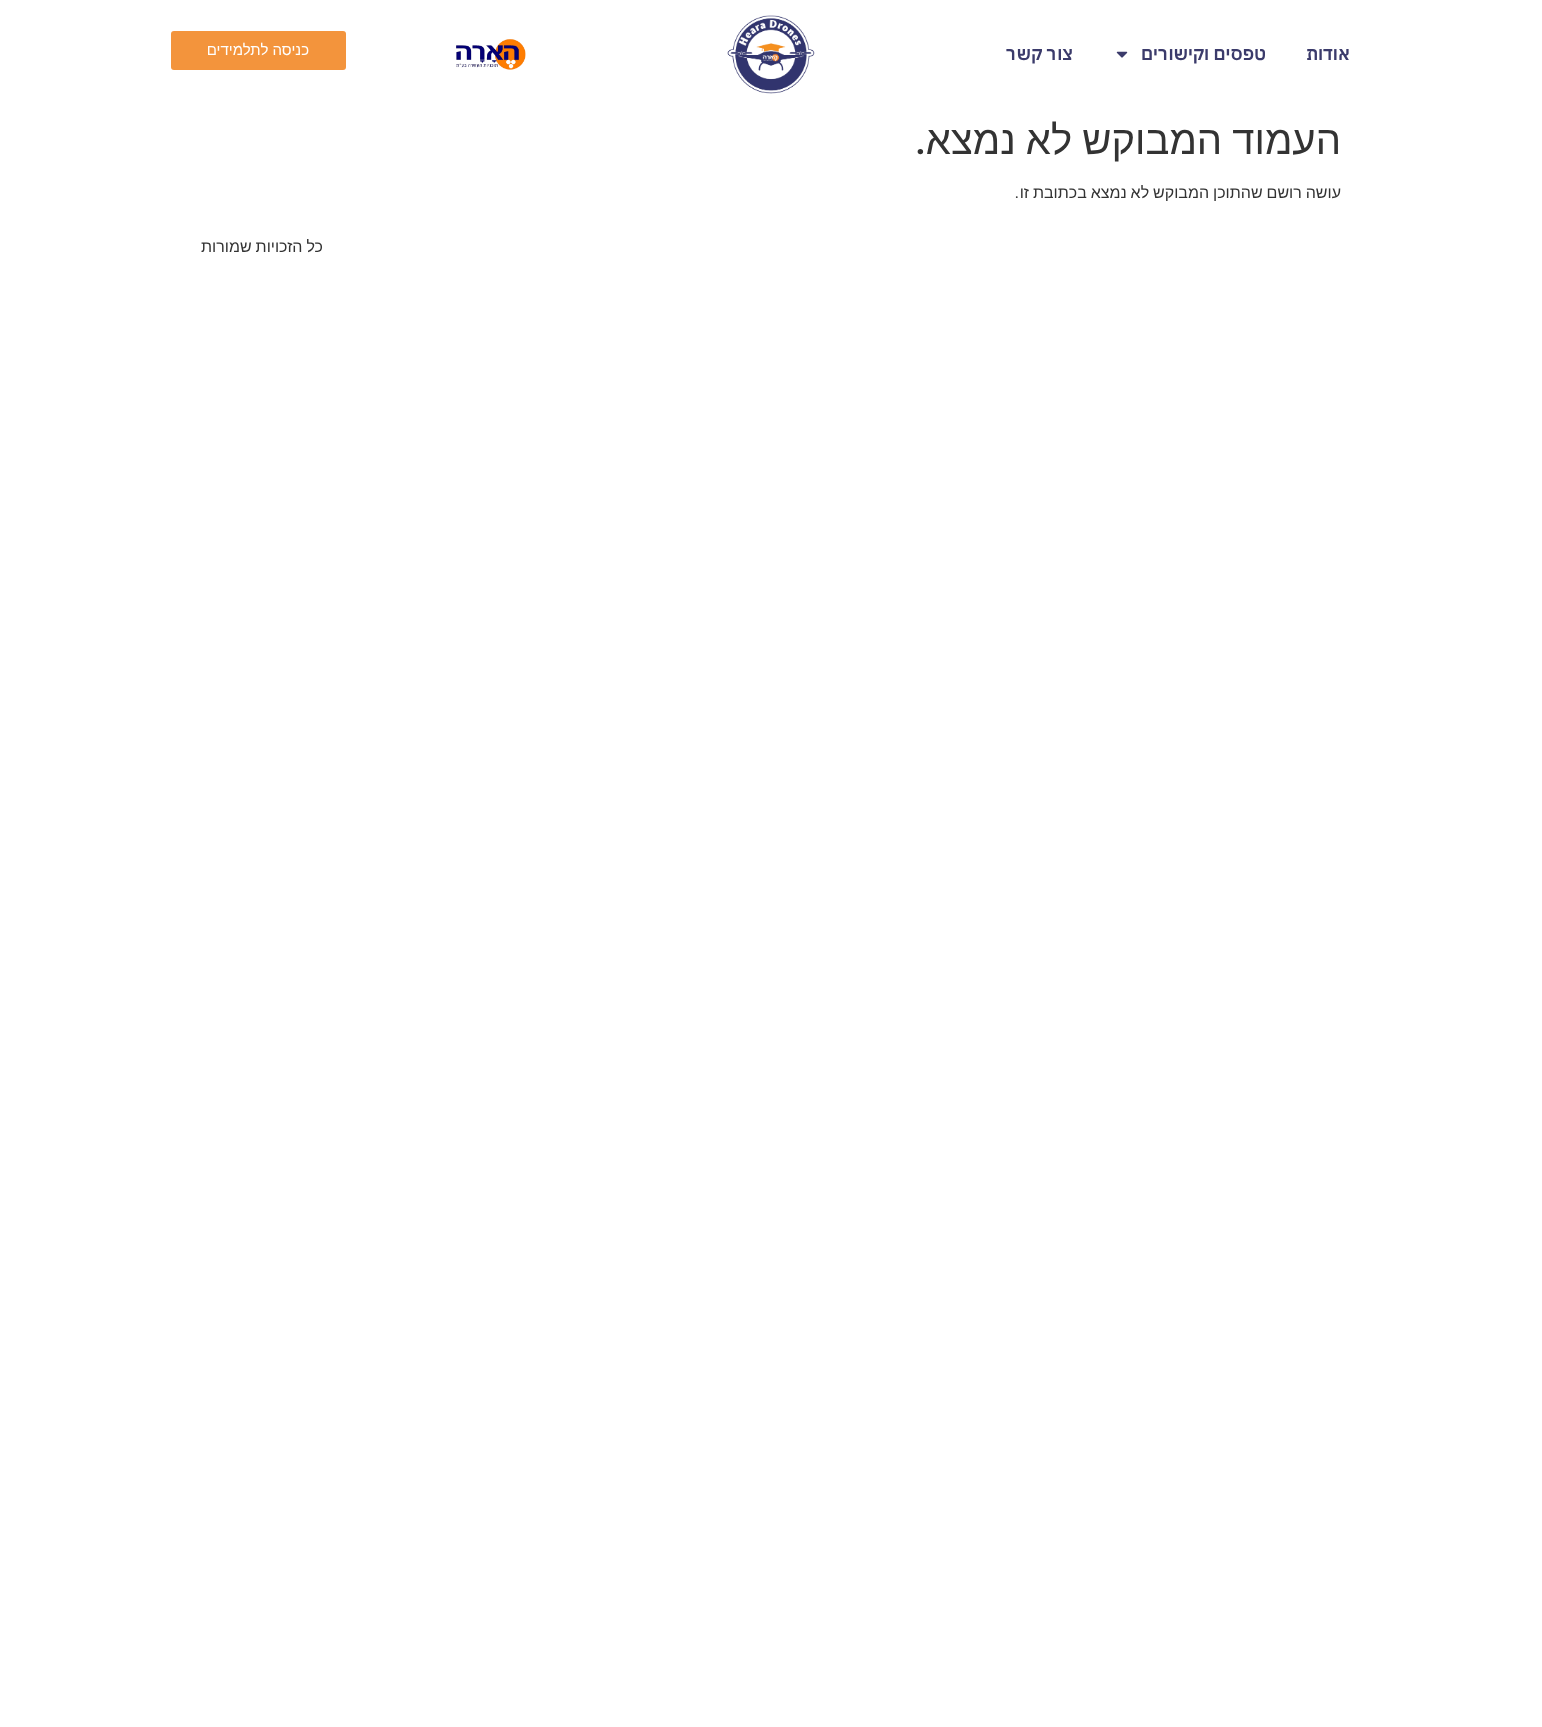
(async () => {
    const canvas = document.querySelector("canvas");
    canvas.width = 1542;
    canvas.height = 1727;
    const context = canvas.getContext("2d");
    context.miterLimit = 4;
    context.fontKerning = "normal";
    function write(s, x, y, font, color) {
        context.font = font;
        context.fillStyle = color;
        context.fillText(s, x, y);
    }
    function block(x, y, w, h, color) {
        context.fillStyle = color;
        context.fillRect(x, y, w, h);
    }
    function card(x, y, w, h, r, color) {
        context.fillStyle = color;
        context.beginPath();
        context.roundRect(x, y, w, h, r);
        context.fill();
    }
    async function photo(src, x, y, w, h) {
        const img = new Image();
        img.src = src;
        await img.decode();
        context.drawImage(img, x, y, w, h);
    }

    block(0, 0, 1542, 1727, "rgb(255, 255, 255)");
    context.direction = "rtl";
    write("אודות", 1350, 60, "600 18px IBM Plex Sans Hebrew", "rgb(59, 59, 107)");
    write("טפסים וקישורים", 1266, 60, "600 18px IBM Plex Sans Hebrew", "rgb(59, 59, 107)");
    await photo("media/1.png", 1116, 51, 12, 7);
    write("צור קשר", 1073, 60, "600 18px IBM Plex Sans Hebrew", "rgb(59, 59, 107)");
    await photo("media/2.png", 727, 15, 88, 79);
    await photo("media/3.png", 456, 39, 70, 31);
    card(171, 31, 175, 39, 3, "rgb(243, 148, 60)");
    write("כניסה לתלמידים", 309, 55, "15px Liberation Sans", "rgb(255, 255, 255)");
    context.wordSpacing = "-1px";
    write("העמוד המבוקש לא נמצא", 1341, 154, "40px Liberation Sans", "rgb(51, 51, 51)");
    context.wordSpacing = "0px";
    write(".", 926, 154, "500 40px Roboto", "rgb(51, 51, 51)");
    context.wordSpacing = "-0.5px";
    write("עושה רושם שהתוכן המבוקש לא נמצא בכתובת זו", 1341, 198, "16px Liberation Sans", "rgb(51, 51, 51)");
    context.wordSpacing = "0px";
    write(".", 1019, 198, "16px Roboto", "rgb(51, 51, 51)");
    context.wordSpacing = "-0.5px";
    write("כל הזכויות שמורות", 323, 252, "16px Liberation Sans", "rgb(51, 51, 51)");
})();
